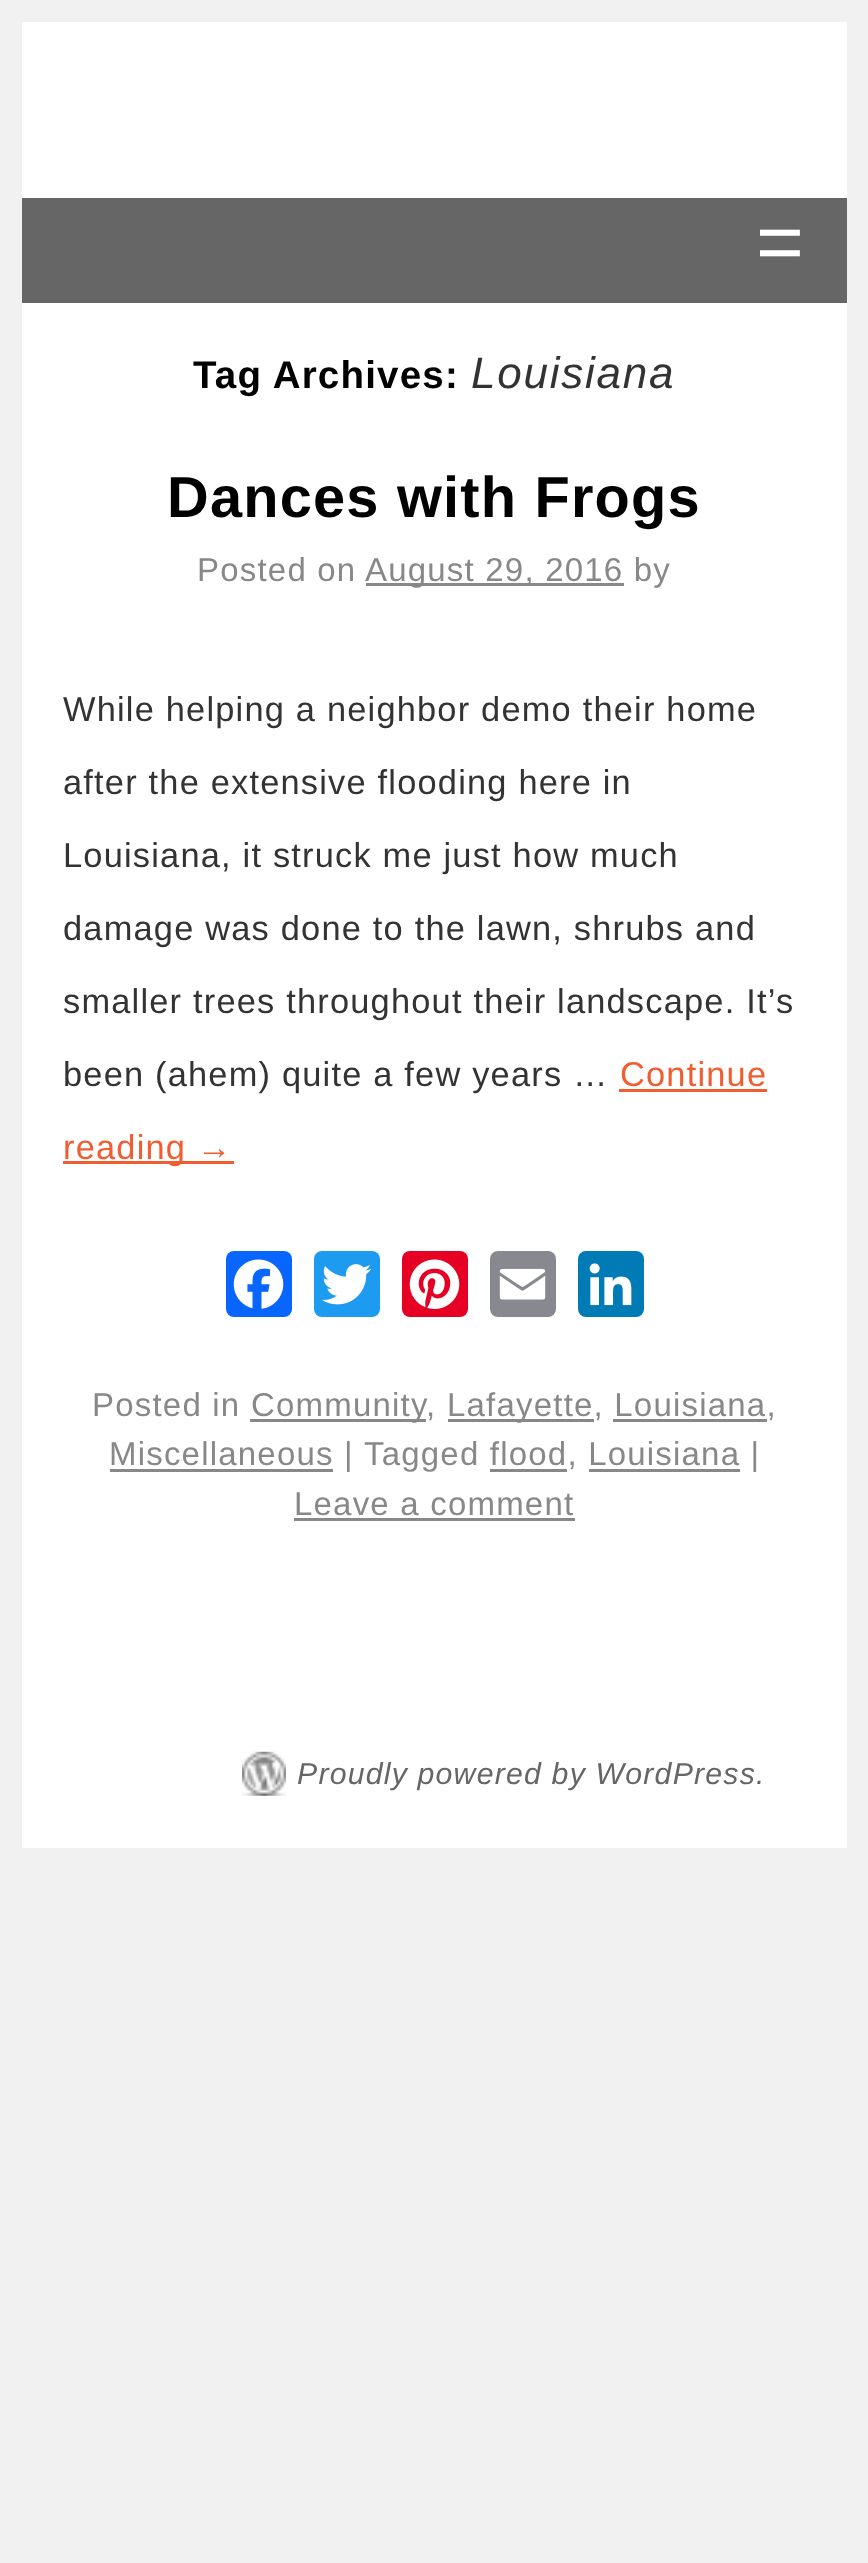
(async () => {
    const canvas = document.querySelector("canvas");
    canvas.width = 868;
    canvas.height = 2563;
    const context = canvas.getContext("2d");
    context.miterLimit = 4;
    context.fontKerning = "normal";
    function write(s, x, y, font, color) {
        context.font = font;
        context.fillStyle = color;
        context.fillText(s, x, y);
    }
    function block(x, y, w, h, color) {
        context.fillStyle = color;
        context.fillRect(x, y, w, h);
    }
    function card(x, y, w, h, r, color) {
        context.fillStyle = color;
        context.beginPath();
        context.roundRect(x, y, w, h, r);
        context.fill();
    }
    async function photo(src, x, y, w, h) {
        const img = new Image();
        img.src = src;
        await img.decode();
        context.drawImage(img, x, y, w, h);
    }

    block(0, 0, 868, 2563, "rgb(241, 241, 241)");
    block(22, 22, 825, 1826, "rgb(255, 255, 255)");
    block(22, 198, 825, 105, "rgb(102, 102, 102)");
    context.letterSpacing = "1.2px";
    write("=", 756, 270, "82px Liberation Sans", "rgb(255, 255, 255)");
    write("Tag Archives:", 193, 388, "bold 38.5px Liberation Sans", "rgb(0, 0, 0)");
    context.letterSpacing = "1.75px";
    write("Louisiana", 471, 388, "italic 44px Liberation Sans", "rgb(51, 51, 51)");
    context.letterSpacing = "1.2px";
    write("Dances with Frogs", 167, 517, "bold 57.75px Liberation Sans", "rgb(0, 0, 0)");
    write("Posted on", 197, 581, "33px Liberation Sans", "rgb(136, 136, 136)");
    block(366, 583, 258, 3, "rgb(136, 136, 136)");
    write("August 29, 2016 by", 365, 581, "33px Liberation Sans", "rgb(136, 136, 136)");
    write("While helping a neighbor demo their home", 63, 721, "34.4px Liberation Sans", "rgb(51, 51, 51)");
    write("after the extensive flooding here in", 63, 794, "34.4px Liberation Sans", "rgb(51, 51, 51)");
    write("Louisiana, it struck me just how much", 63, 867, "34.4px Liberation Sans", "rgb(51, 51, 51)");
    write("damage was done to the lawn, shrubs and", 63, 940, "34.4px Liberation Sans", "rgb(51, 51, 51)");
    write("smaller trees throughout their landscape. It’s", 63, 1013, "34.4px Liberation Sans", "rgb(51, 51, 51)");
    write("been (ahem) quite a few years …", 63, 1086, "34.4px Liberation Sans", "rgb(51, 51, 51)");
    write("Continue", 620, 1086, "34.4px Liberation Sans", "rgb(241, 92, 48)");
    block(619, 1089, 148, 3, "rgb(241, 92, 48)");
    block(63, 1161, 171, 3, "rgb(241, 92, 48)");
    write("reading →", 63, 1159, "34.4px Liberation Sans", "rgb(241, 92, 48)");
    card(226, 1251, 66, 66, 8, "rgb(8, 102, 255)");
    await photo("media/1.png", 233, 1259, 51, 50);
    card(314, 1251, 66, 66, 8, "rgb(29, 155, 240)");
    await photo("media/2.png", 322, 1264, 50, 41);
    card(402, 1251, 66, 66, 8, "rgb(230, 0, 35)");
    await photo("media/3.png", 409, 1259, 51, 50);
    card(490, 1251, 66, 66, 8, "rgb(136, 137, 144)");
    await photo("media/4.png", 499, 1268, 47, 32);
    card(578, 1251, 66, 66, 8, "rgb(0, 123, 181)");
    await photo("media/5.png", 589, 1263, 43, 43);
    write("Posted in", 92, 1416, "33px Liberation Sans", "rgb(136, 136, 136)");
    block(250, 1419, 176, 3, "rgb(136, 136, 136)");
    write("Community", 251, 1416, "33px Liberation Sans", "rgb(136, 136, 136)");
    write(",", 426, 1416, "33px Liberation Sans", "rgb(136, 136, 136)");
    block(448, 1419, 146, 3, "rgb(136, 136, 136)");
    write("Lafayette, Louisiana,", 447, 1416, "33px Liberation Sans", "rgb(136, 136, 136)");
    block(613, 1419, 154, 3, "rgb(136, 136, 136)");
    block(110, 1469, 223, 3, "rgb(136, 136, 136)");
    write("Miscellaneous |", 109, 1465, "33px Liberation Sans", "rgb(136, 136, 136)");
    write("Tagged flood, Louisiana |", 364, 1465, "33px Liberation Sans", "rgb(136, 136, 136)");
    block(490, 1469, 77, 3, "rgb(136, 136, 136)");
    block(589, 1469, 151, 3, "rgb(136, 136, 136)");
    write("Leave a comment", 294, 1515, "33px Liberation Sans", "rgb(136, 136, 136)");
    block(294, 1518, 281, 3, "rgb(136, 136, 136)");
    await photo("media/6.png", 242, 1751, 44, 45);
    write("Proudly powered by WordPress.", 297, 1784, "italic 30.25px Liberation Sans", "rgb(102, 102, 102)");
})();
